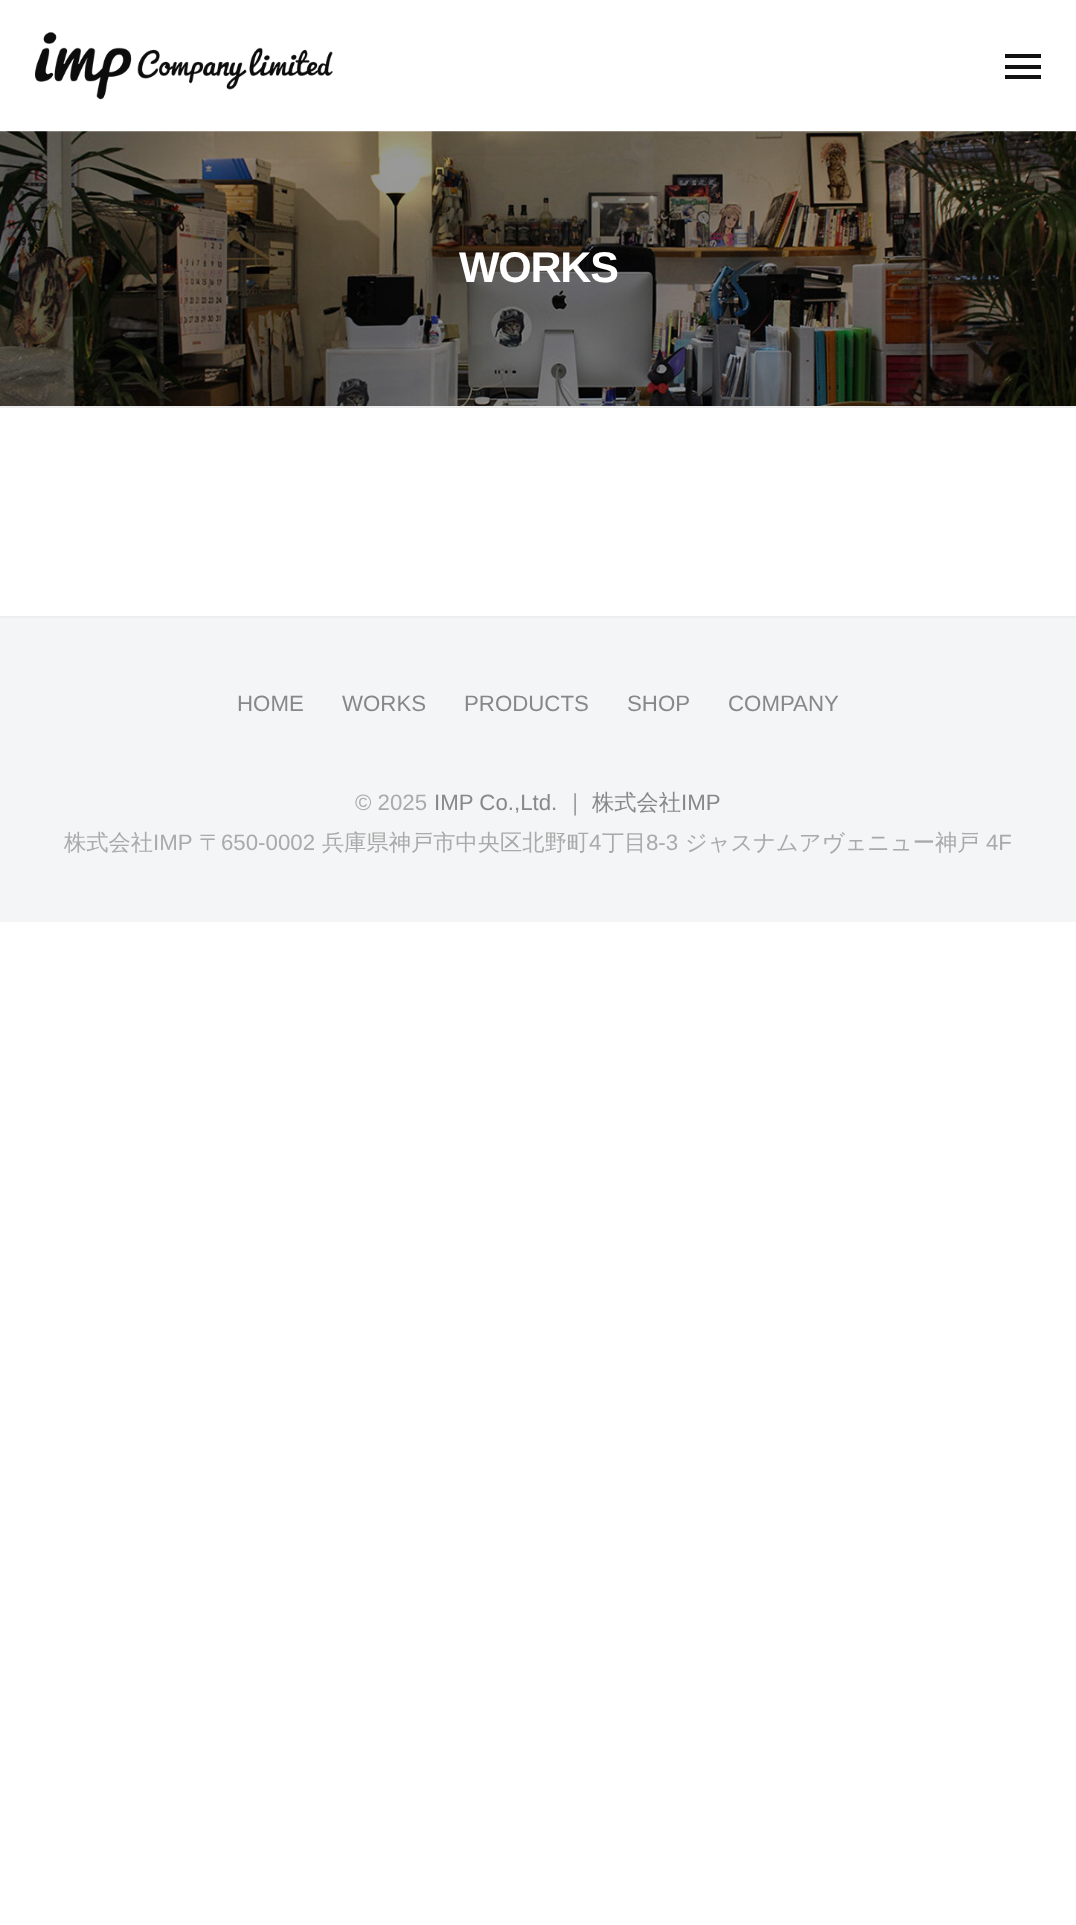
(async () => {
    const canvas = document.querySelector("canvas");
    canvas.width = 1076;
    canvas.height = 1925;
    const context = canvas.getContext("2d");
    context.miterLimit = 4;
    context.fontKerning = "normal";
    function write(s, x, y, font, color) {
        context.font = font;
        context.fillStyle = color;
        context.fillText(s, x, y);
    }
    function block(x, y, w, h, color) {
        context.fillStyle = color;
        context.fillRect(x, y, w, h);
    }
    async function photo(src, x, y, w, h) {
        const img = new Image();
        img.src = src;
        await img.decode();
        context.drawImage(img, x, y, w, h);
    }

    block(0, 0, 1076, 1925, "rgb(255, 255, 255)");
    block(0, 406, 1076, 2, "rgb(238, 238, 238)");
    await photo("media/1.png", 35, 32, 298, 68);
    block(1005, 65, 36, 4, "rgb(17, 17, 17)");
    block(1005, 54, 36, 4, "rgb(17, 17, 17)");
    block(1005, 75, 36, 4, "rgb(17, 17, 17)");
    await photo("media/2.png", 0, 131, 1076, 275);
    context.letterSpacing = "-1.25px";
    write("WORKS", 459, 282, "bold 43px Liberation Sans", "rgb(255, 255, 255)");
    block(0, 618, 1076, 304, "rgb(244, 245, 246)");
    block(0, 616, 1076, 2, "rgb(238, 238, 238)");
    context.letterSpacing = "0px";
    write("HOME", 237, 711, "22.25px Liberation Sans", "rgb(136, 136, 136)");
    write("WORKS", 342, 711, "22.25px Liberation Sans", "rgb(136, 136, 136)");
    write("PRODUCTS", 464, 711, "22.25px Liberation Sans", "rgb(136, 136, 136)");
    write("SHOP", 627, 711, "22.25px Liberation Sans", "rgb(136, 136, 136)");
    write("COMPANY", 728, 711, "22.25px Liberation Sans", "rgb(136, 136, 136)");
    write("© 2025", 355, 810, "22.25px Liberation Sans", "rgb(170, 170, 170)");
    write("IMP Co.,Ltd.", 434, 810, "22.25px Liberation Sans", "rgb(136, 136, 136)");
    write("｜", 564, 810, "500 22.25px WenQuanYi Zen Hei", "rgb(136, 136, 136)");
    write("株式会社", 592, 810, "500 22.25px WenQuanYi Zen Hei", "rgb(136, 136, 136)");
    write("IMP", 681, 810, "22.25px Liberation Sans", "rgb(136, 136, 136)");
    write("株式会社", 64, 850, "500 22.25px WenQuanYi Zen Hei", "rgb(170, 170, 170)");
    write("IMP", 153, 850, "22.25px Liberation Sans", "rgb(170, 170, 170)");
    write("〒", 199, 850, "500 22.25px WenQuanYi Zen Hei", "rgb(170, 170, 170)");
    write("650-0002", 221, 850, "22.25px Liberation Sans", "rgb(170, 170, 170)");
    write("兵庫県神戸市中央区北野町", 322, 850, "500 22.25px WenQuanYi Zen Hei", "rgb(170, 170, 170)");
    write("4", 589, 850, "22.25px Liberation Sans", "rgb(170, 170, 170)");
    write("丁目", 602, 850, "500 22.25px WenQuanYi Zen Hei", "rgb(170, 170, 170)");
    write("8-3", 646, 850, "22.25px Liberation Sans", "rgb(170, 170, 170)");
    write("ジャスナムアヴェニュー神戸", 685, 850, "500 22.25px WenQuanYi Zen Hei", "rgb(170, 170, 170)");
    write("4F", 986, 850, "22.25px Liberation Sans", "rgb(170, 170, 170)");
})();
